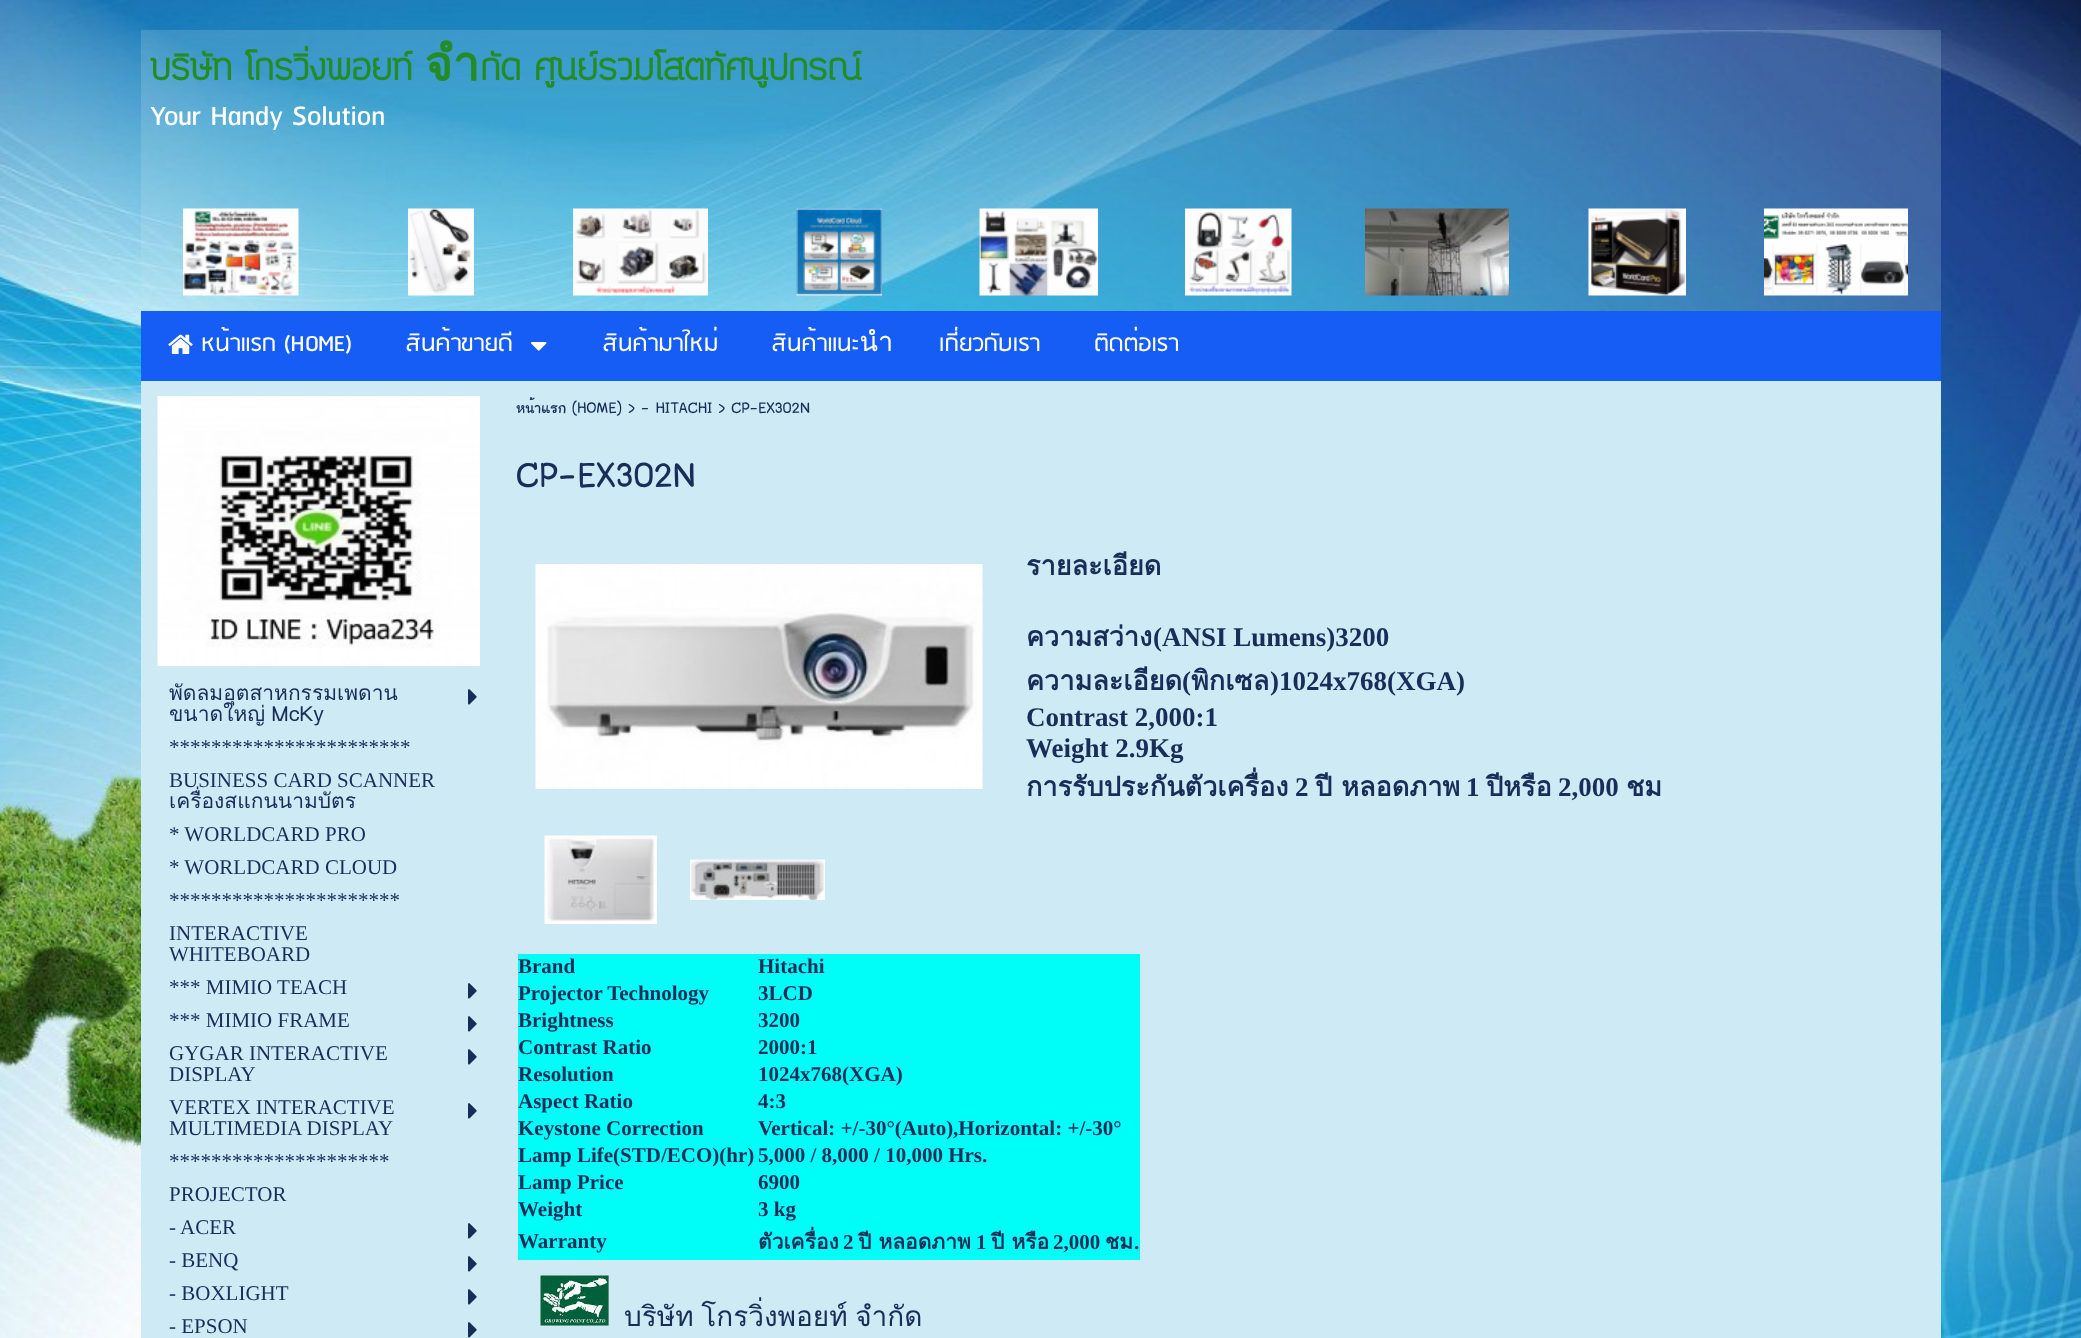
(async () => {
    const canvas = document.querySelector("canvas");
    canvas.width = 2081;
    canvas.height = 1338;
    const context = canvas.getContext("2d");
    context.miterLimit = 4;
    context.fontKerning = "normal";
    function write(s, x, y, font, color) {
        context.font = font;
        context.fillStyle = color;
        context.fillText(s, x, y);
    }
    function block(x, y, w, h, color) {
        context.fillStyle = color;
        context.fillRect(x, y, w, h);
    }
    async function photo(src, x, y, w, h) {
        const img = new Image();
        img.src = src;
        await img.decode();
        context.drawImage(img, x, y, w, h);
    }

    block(0, 0, 2081, 1338, "rgb(255, 255, 255)");
    await photo("media/1.png", 0, 0, 2081, 1338);
    block(141, 30, 1800, 281, "rgba(193, 228, 241, 0.2)");
    write("บริษัท โกรวิ่งพอยท์ จำกัด ศูนย์รวมโสตทัศนูปกรณ์", 150, 80, "bold 48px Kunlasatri", "rgb(36, 140, 38)");
    write("Your Handy Solution", 150, 125, "33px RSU", "rgb(255, 255, 255)");
    await photo("media/2.png", 183, 208, 116, 88);
    await photo("media/3.png", 408, 208, 66, 88);
    await photo("media/4.png", 573, 208, 135, 88);
    await photo("media/5.png", 796, 208, 86, 88);
    await photo("media/6.png", 979, 208, 119, 88);
    await photo("media/7.png", 1185, 208, 107, 88);
    await photo("media/8.png", 1365, 208, 144, 88);
    await photo("media/9.png", 1588, 208, 98, 88);
    await photo("media/10.png", 1764, 208, 144, 88);
    block(141, 311, 1800, 70, "rgb(22, 93, 245)");
    await photo("media/11.png", 168, 334, 25, 20);
    write("หน้าแรก (HOME)", 201, 351, "27px RSU", "rgb(255, 255, 255)");
    write("สินค้าขายดี", 406, 351, "27px RSU", "rgb(255, 255, 255)");
    await photo("media/12.png", 531, 342, 16, 9);
    write("สินค้ามาใหม่", 603, 351, "27px RSU", "rgb(255, 255, 255)");
    write("สินค้าแนะนำ", 772, 351, "27px RSU", "rgb(255, 255, 255)");
    write("เกี่ยวกับเรา", 939, 351, "27px RSU", "rgb(255, 255, 255)");
    write("ติดต่อเรา", 1094, 351, "27px RSU", "rgb(255, 255, 255)");
    block(141, 381, 1800, 957, "rgb(206, 234, 244)");
    write("หน้าแรก (HOME) > - HITACHI > CP-EX302N", 516, 413, "21px 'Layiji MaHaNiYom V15'", "rgb(25, 45, 89)");
    write("CP-EX302N", 516, 487, "48px 'Layiji MaHaNiYom V15'", "rgb(25, 45, 89)");
    await photo("media/13.png", 157, 396, 323, 270);
    write("พัดลมอุตสาหกรรมเพดาน", 169, 700, "21px Loma", "rgb(25, 45, 89)");
    context.wordSpacing = "-1px";
    write("ขนาดใหญ่ McKy", 169, 721, "21px Loma", "rgb(25, 45, 89)");
    await photo("media/14.png", 468, 689, 9, 16);
    context.wordSpacing = "0px";
    write("***********************", 169, 754, "21px Liberation Serif", "rgb(25, 45, 89)");
    write("BUSINESS CARD SCANNER", 169, 787, "21px Liberation Serif", "rgb(25, 45, 89)");
    write("เครื่องสแกนนามบัตร", 169, 808, "21px Loma", "rgb(25, 45, 89)");
    write("* WORLDCARD PRO", 169, 841, "21px Liberation Serif", "rgb(25, 45, 89)");
    write("* WORLDCARD CLOUD", 169, 874, "21px Liberation Serif", "rgb(25, 45, 89)");
    write("**********************", 169, 907, "21px Liberation Serif", "rgb(25, 45, 89)");
    write("INTERACTIVE", 169, 940, "21px Liberation Serif", "rgb(25, 45, 89)");
    write("WHITEBOARD", 169, 961, "21px Liberation Serif", "rgb(25, 45, 89)");
    write("*** MIMIO TEACH", 169, 994, "21px Liberation Serif", "rgb(25, 45, 89)");
    await photo("media/14.png", 468, 983, 9, 16);
    write("*** MIMIO FRAME", 169, 1027, "21px Liberation Serif", "rgb(25, 45, 89)");
    await photo("media/14.png", 468, 1016, 9, 16);
    write("GYGAR INTERACTIVE", 169, 1060, "21px Liberation Serif", "rgb(25, 45, 89)");
    write("DISPLAY", 169, 1081, "21px Liberation Serif", "rgb(25, 45, 89)");
    await photo("media/14.png", 468, 1049, 9, 16);
    write("VERTEX INTERACTIVE", 169, 1114, "21px Liberation Serif", "rgb(25, 45, 89)");
    write("MULTIMEDIA DISPLAY", 169, 1135, "21px Liberation Serif", "rgb(25, 45, 89)");
    await photo("media/14.png", 468, 1103, 9, 16);
    write("*********************", 169, 1168, "21px Liberation Serif", "rgb(25, 45, 89)");
    write("PROJECTOR", 169, 1201, "21px Liberation Serif", "rgb(25, 45, 89)");
    write("- ACER", 169, 1234, "21px Liberation Serif", "rgb(25, 45, 89)");
    await photo("media/14.png", 468, 1223, 9, 16);
    write("- BENQ", 169, 1267, "21px Liberation Serif", "rgb(25, 45, 89)");
    await photo("media/14.png", 468, 1256, 9, 16);
    write("- BOXLIGHT", 169, 1300, "21px Liberation Serif", "rgb(25, 45, 89)");
    await photo("media/14.png", 468, 1289, 9, 16);
    write("- EPSON", 169, 1333, "21px Liberation Serif", "rgb(25, 45, 89)");
    await photo("media/14.png", 468, 1322, 9, 16);
    await photo("media/15.png", 535, 564, 448, 225);
    await photo("media/16.png", 544, 835, 113, 89);
    await photo("media/17.png", 690, 859, 135, 41);
    write("รายละเอียด", 1026, 575, "bold 27px Loma", "rgb(25, 45, 89)");
    write("ความสว่าง", 1026, 646, "bold 27px Loma", "rgb(25, 45, 89)");
    write("(ANSI Lumens)3200", 1153, 646, "bold 27px Liberation Serif", "rgb(25, 45, 89)");
    write("ความละเอียด", 1026, 690, "bold 27px Loma", "rgb(25, 45, 89)");
    write("(", 1182, 690, "bold 27px Liberation Serif", "rgb(25, 45, 89)");
    write("พิกเซล", 1191, 690, "bold 27px Loma", "rgb(25, 45, 89)");
    write(")1024x768(XGA)", 1270, 690, "bold 27px Liberation Serif", "rgb(25, 45, 89)");
    write("Contrast 2,000:1", 1026, 726, "bold 27px Liberation Serif", "rgb(25, 45, 89)");
    write("Weight 2.9Kg", 1026, 757, "bold 27px Liberation Serif", "rgb(25, 45, 89)");
    write("การรับประกันตัวเครื่อง", 1026, 796, "bold 27px Loma", "rgb(25, 45, 89)");
    write("2", 1295, 796, "bold 27px Liberation Serif", "rgb(25, 45, 89)");
    write("ปี หลอดภาพ", 1315, 796, "bold 27px Loma", "rgb(25, 45, 89)");
    write("1", 1466, 796, "bold 27px Liberation Serif", "rgb(25, 45, 89)");
    write("ปีหรือ", 1486, 796, "bold 27px Loma", "rgb(25, 45, 89)");
    write("2,000", 1558, 796, "bold 27px Liberation Serif", "rgb(25, 45, 89)");
    write("ชม", 1626, 796, "bold 27px Loma", "rgb(25, 45, 89)");
    block(518, 954, 622, 306, "rgb(0, 254, 249)");
    write("Brand", 518, 973, "bold 21px Liberation Serif", "rgb(25, 45, 89)");
    write("Hitachi", 758, 973, "bold 21px Liberation Serif", "rgb(25, 45, 89)");
    write("Projector Technology", 518, 1000, "bold 21px Liberation Serif", "rgb(25, 45, 89)");
    write("3LCD", 758, 1000, "bold 21px Liberation Serif", "rgb(25, 45, 89)");
    write("Brightness", 518, 1027, "bold 21px Liberation Serif", "rgb(25, 45, 89)");
    write("3200", 758, 1027, "bold 21px Liberation Serif", "rgb(25, 45, 89)");
    write("Contrast Ratio", 518, 1054, "bold 21px Liberation Serif", "rgb(25, 45, 89)");
    write("2000:1", 758, 1054, "bold 21px Liberation Serif", "rgb(25, 45, 89)");
    write("Resolution", 518, 1081, "bold 21px Liberation Serif", "rgb(25, 45, 89)");
    write("1024x768(XGA)", 758, 1081, "bold 21px Liberation Serif", "rgb(25, 45, 89)");
    write("Aspect Ratio", 518, 1108, "bold 21px Liberation Serif", "rgb(25, 45, 89)");
    write("4:3", 758, 1108, "bold 21px Liberation Serif", "rgb(25, 45, 89)");
    write("Keystone Correction", 518, 1135, "bold 21px Liberation Serif", "rgb(25, 45, 89)");
    write("Vertical: +/-30°(Auto),Horizontal: +/-30°", 758, 1135, "bold 21px Liberation Serif", "rgb(25, 45, 89)");
    write("Lamp Life(STD/ECO)(hr)", 518, 1162, "bold 21px Liberation Serif", "rgb(25, 45, 89)");
    write("5,000 / 8,000 / 10,000 Hrs.", 758, 1162, "bold 21px Liberation Serif", "rgb(25, 45, 89)");
    write("Lamp Price", 518, 1189, "bold 21px Liberation Serif", "rgb(25, 45, 89)");
    write("6900", 758, 1189, "bold 21px Liberation Serif", "rgb(25, 45, 89)");
    write("Weight", 518, 1216, "bold 21px Liberation Serif", "rgb(25, 45, 89)");
    write("3 kg", 758, 1216, "bold 21px Liberation Serif", "rgb(25, 45, 89)");
    write("Warranty", 518, 1248, "bold 21px Liberation Serif", "rgb(25, 45, 89)");
    write("ตัวเครื่อง", 758, 1249, "bold 21px Loma", "rgb(25, 45, 89)");
    write("2", 843, 1249, "bold 21px Liberation Serif", "rgb(25, 45, 89)");
    write("ปี หลอดภาพ", 858, 1249, "bold 21px Loma", "rgb(25, 45, 89)");
    write("1", 976, 1249, "bold 21px Liberation Serif", "rgb(25, 45, 89)");
    write("ปี หรือ", 991, 1249, "bold 21px Loma", "rgb(25, 45, 89)");
    write("2,000", 1053, 1249, "bold 21px Liberation Serif", "rgb(25, 45, 89)");
    write("ชม", 1105, 1249, "bold 21px Loma", "rgb(25, 45, 89)");
    write(".", 1134, 1249, "bold 21px Liberation Serif", "rgb(25, 45, 89)");
    await photo("media/18.png", 540, 1275, 69, 51);
    context.wordSpacing = "-2px";
    write("บริษัท โกรวิ่งพอยท์ จำกัด", 624, 1326, "28px Loma", "rgb(25, 45, 89)");
})();
